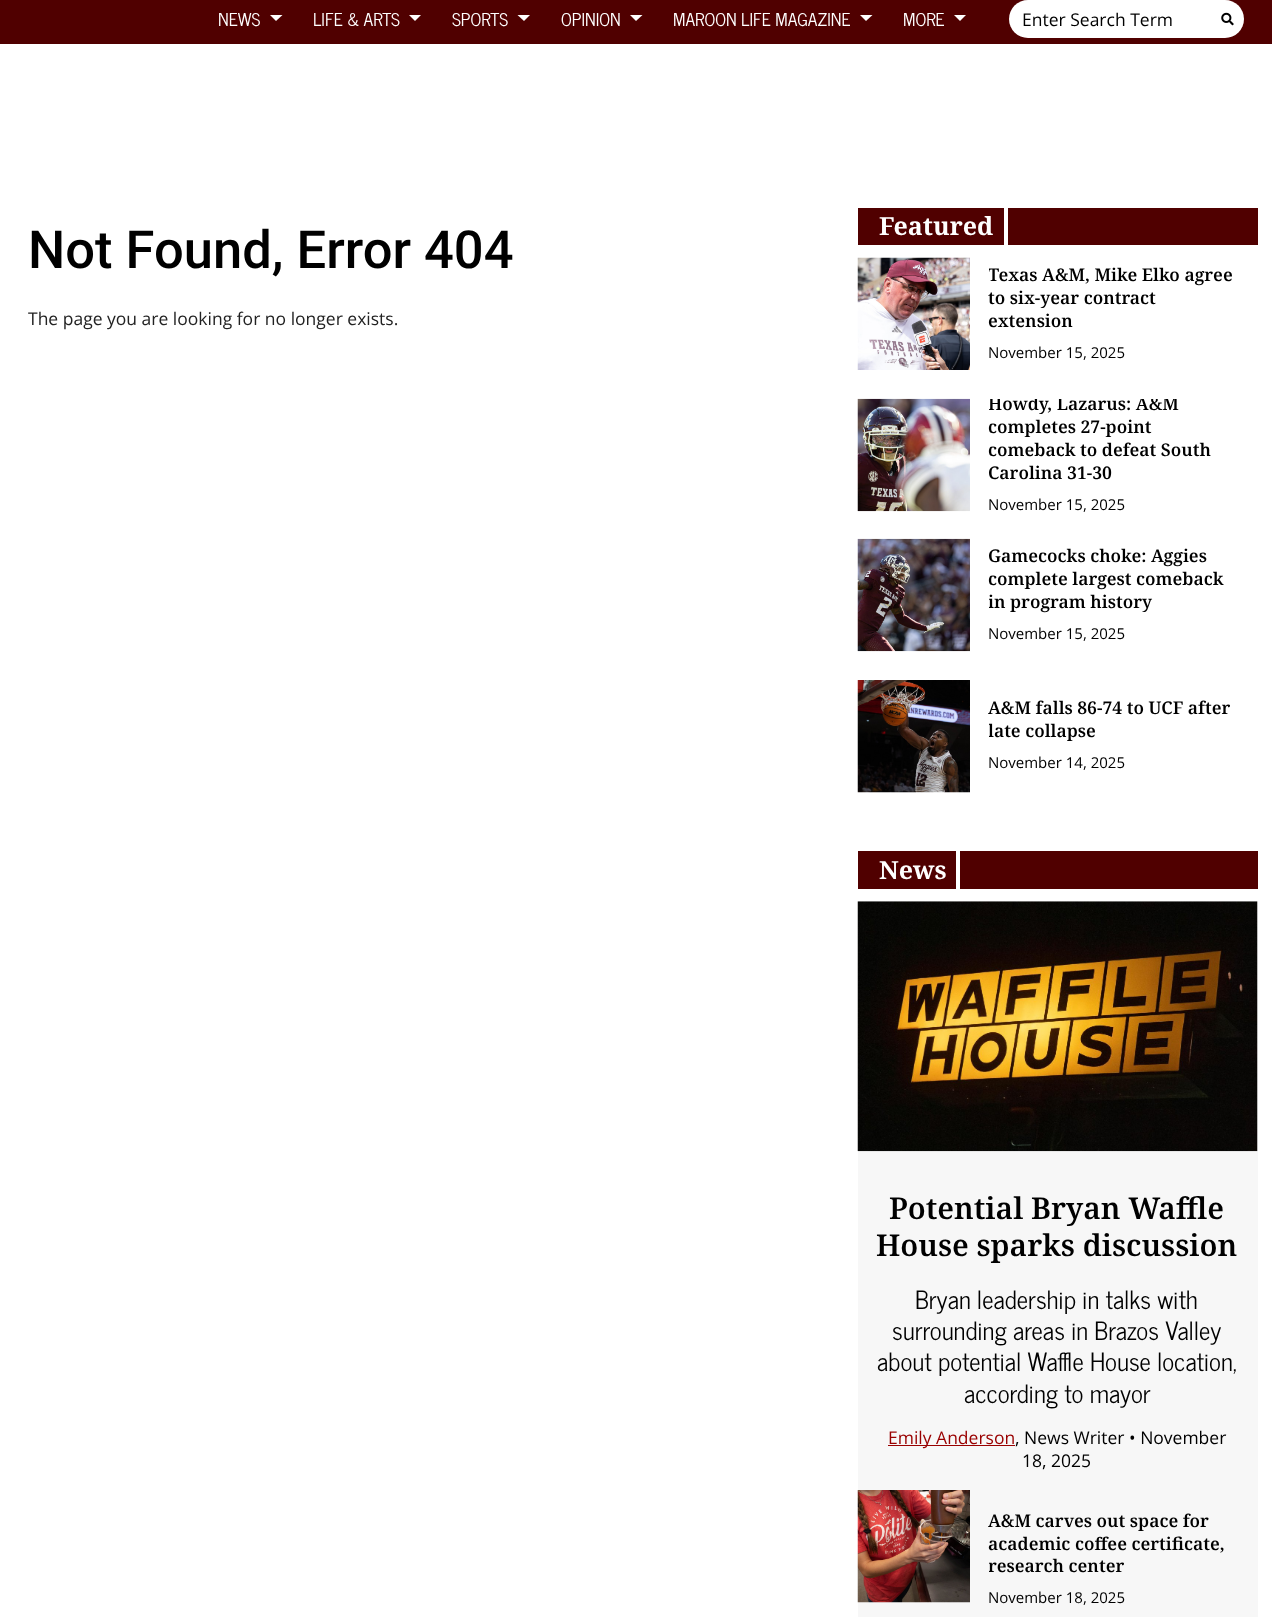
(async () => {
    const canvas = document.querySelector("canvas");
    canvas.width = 1272;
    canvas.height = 1617;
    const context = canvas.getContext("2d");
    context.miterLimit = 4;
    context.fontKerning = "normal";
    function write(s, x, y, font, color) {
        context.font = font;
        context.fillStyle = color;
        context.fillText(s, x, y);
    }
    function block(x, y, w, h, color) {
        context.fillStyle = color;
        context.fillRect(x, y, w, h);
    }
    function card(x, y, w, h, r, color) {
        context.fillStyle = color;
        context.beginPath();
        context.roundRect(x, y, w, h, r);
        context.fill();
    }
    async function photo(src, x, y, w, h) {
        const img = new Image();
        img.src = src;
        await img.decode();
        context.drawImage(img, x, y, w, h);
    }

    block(0, 0, 1272, 1617, "rgb(255, 255, 255)");
    block(0, 0, 1272, 44, "rgb(80, 0, 0)");
    write("NEWS", 218, 26, "17.5px News Cycle", "rgb(255, 255, 255)");
    context.beginPath();
    context.moveTo(270, 15);
    context.lineTo(282.5, 15);
    context.lineTo(276, 21);
    context.closePath();
    context.fill();
    write("LIFE & ARTS", 313, 26, "17.5px News Cycle", "rgb(255, 255, 255)");
    context.beginPath();
    context.moveTo(409, 15);
    context.lineTo(421, 15);
    context.lineTo(415, 21);
    context.closePath();
    context.fill();
    write("SPORTS", 452, 26, "17.5px News Cycle", "rgb(255, 255, 255)");
    context.beginPath();
    context.moveTo(517.5, 15);
    context.lineTo(530, 15);
    context.lineTo(524, 21);
    context.closePath();
    context.fill();
    write("OPINION", 561, 26, "17.5px News Cycle", "rgb(255, 255, 255)");
    context.beginPath();
    context.moveTo(630, 15);
    context.lineTo(642.5, 15);
    context.lineTo(636, 21);
    context.closePath();
    context.fill();
    write("MAROON LIFE MAGAZINE", 673, 26, "17.5px News Cycle", "rgb(255, 255, 255)");
    context.beginPath();
    context.moveTo(860, 15);
    context.lineTo(872.5, 15);
    context.lineTo(866, 21);
    context.closePath();
    context.fill();
    write("MORE", 903, 26, "17.5px News Cycle", "rgb(255, 255, 255)");
    context.beginPath();
    context.moveTo(954, 15);
    context.lineTo(966, 15);
    context.lineTo(960, 21);
    context.closePath();
    context.fill();
    card(1009, 0, 235, 38, 19, "rgb(255, 255, 255)");
    write("Enter Search Term", 1022, 26, "17.5px Open Sans", "rgb(0, 0, 0)");
    await photo("media/1.png", 1221, 12, 13, 14);
    write("Not Found, Error 404", 28, 268, "500 52.5px Roboto", "rgb(0, 0, 0)");
    write("The page you are looking for no longer exists.", 28, 325, "17.5px Open Sans", "rgb(34, 34, 34)");
    block(858, 208, 400, 37, "rgb(80, 0, 0)");
    block(1004, 208, 4, 37, "rgb(255, 255, 255)");
    write("Featured", 879, 235, "bold 25px Noto Serif", "rgb(255, 255, 255)");
    await photo("media/2.png", 857, 257, 113, 113);
    context.save();
    context.beginPath();
    context.rect(989, 258, 250, 112);
    context.clip();
    write("Texas A&M, Mike Elko agree", 988, 281, "600 17.5px Noto Serif", "rgb(0, 0, 0)");
    context.restore();
    write("to six-year contract", 988, 304, "600 17.5px Noto Serif", "rgb(0, 0, 0)");
    write("extension", 988, 327, "600 17.5px Noto Serif", "rgb(0, 0, 0)");
    write("November 15, 2025", 988, 358, "15px Open Sans", "rgb(0, 0, 0)");
    await photo("media/3.png", 857, 398, 113, 114);
    context.save();
    context.beginPath();
    context.rect(989, 399, 250, 112);
    context.clip();
    write("Howdy, Lazarus: A&M", 988, 410, "600 17.5px Noto Serif", "rgb(0, 0, 0)");
    context.restore();
    write("completes 27-point", 988, 433, "600 17.5px Noto Serif", "rgb(0, 0, 0)");
    write("comeback to defeat South", 988, 456, "600 17.5px Noto Serif", "rgb(0, 0, 0)");
    write("Carolina 31-30", 988, 479, "600 17.5px Noto Serif", "rgb(0, 0, 0)");
    write("November 15, 2025", 988, 510, "15px Open Sans", "rgb(0, 0, 0)");
    await photo("media/4.png", 857, 538, 113, 114);
    write("Gamecocks choke: Aggies", 988, 562, "600 17.5px Noto Serif", "rgb(0, 0, 0)");
    write("complete largest comeback", 988, 585, "600 17.5px Noto Serif", "rgb(0, 0, 0)");
    context.save();
    context.beginPath();
    context.rect(989, 539, 250, 112);
    context.clip();
    write("in program history", 988, 608, "600 17.5px Noto Serif", "rgb(0, 0, 0)");
    context.restore();
    write("November 15, 2025", 988, 639, "15px Open Sans", "rgb(0, 0, 0)");
    await photo("media/5.png", 857, 680, 113, 113);
    write("A&M falls 86-74 to UCF after", 988, 714, "600 17.5px Noto Serif", "rgb(0, 0, 0)");
    context.save();
    context.beginPath();
    context.rect(989, 680, 250, 113);
    context.clip();
    write("late collapse", 988, 737, "600 17.5px Noto Serif", "rgb(0, 0, 0)");
    context.restore();
    write("November 14, 2025", 988, 768, "15px Open Sans", "rgb(0, 0, 0)");
    block(858, 851, 400, 38, "rgb(80, 0, 0)");
    block(956, 851, 4, 38, "rgb(255, 255, 255)");
    write("News", 879, 879, "bold 25px Noto Serif", "rgb(255, 255, 255)");
    block(858, 901, 400, 716, "rgb(247, 247, 247)");
    await photo("media/6.png", 857, 901, 401, 251);
    write("Potential Bryan Waffle", 889, 1219, "600 30px Noto Serif", "rgb(0, 0, 0)");
    write("House sparks discussion", 876, 1256, "600 30px Noto Serif", "rgb(0, 0, 0)");
    write("Bryan leadership in talks with", 915, 1309, "25px News Cycle", "rgb(0, 0, 0)");
    write("surrounding areas in Brazos Valley", 892, 1340, "25px News Cycle", "rgb(0, 0, 0)");
    write("about potential Waffle House location,", 877, 1371, "25px News Cycle", "rgb(0, 0, 0)");
    write("according to mayor", 964, 1403, "25px News Cycle", "rgb(0, 0, 0)");
    block(888, 1445, 127, 1, "rgb(153, 0, 0)");
    write("Emily Anderson", 888, 1444, "17.5px Open Sans", "rgb(153, 0, 0)");
    write(", News Writer • November", 1015, 1444, "17.5px Open Sans", "rgb(0, 0, 0)");
    write("18, 2025", 1022, 1467, "17.5px Open Sans", "rgb(0, 0, 0)");
    await photo("media/7.png", 857, 1490, 113, 113);
    write("A&M carves out space for", 988, 1527, "600 17.5px Noto Serif", "rgb(0, 0, 0)");
    write("academic coffee certificate,", 988, 1550, "600 17.5px Noto Serif", "rgb(0, 0, 0)");
    context.save();
    context.beginPath();
    context.rect(989, 1509, 250, 101);
    context.clip();
    write("research center", 988, 1572, "600 17.5px Noto Serif", "rgb(0, 0, 0)");
    context.restore();
    write("November 18, 2025", 988, 1603, "15px Open Sans", "rgb(0, 0, 0)");
})();
